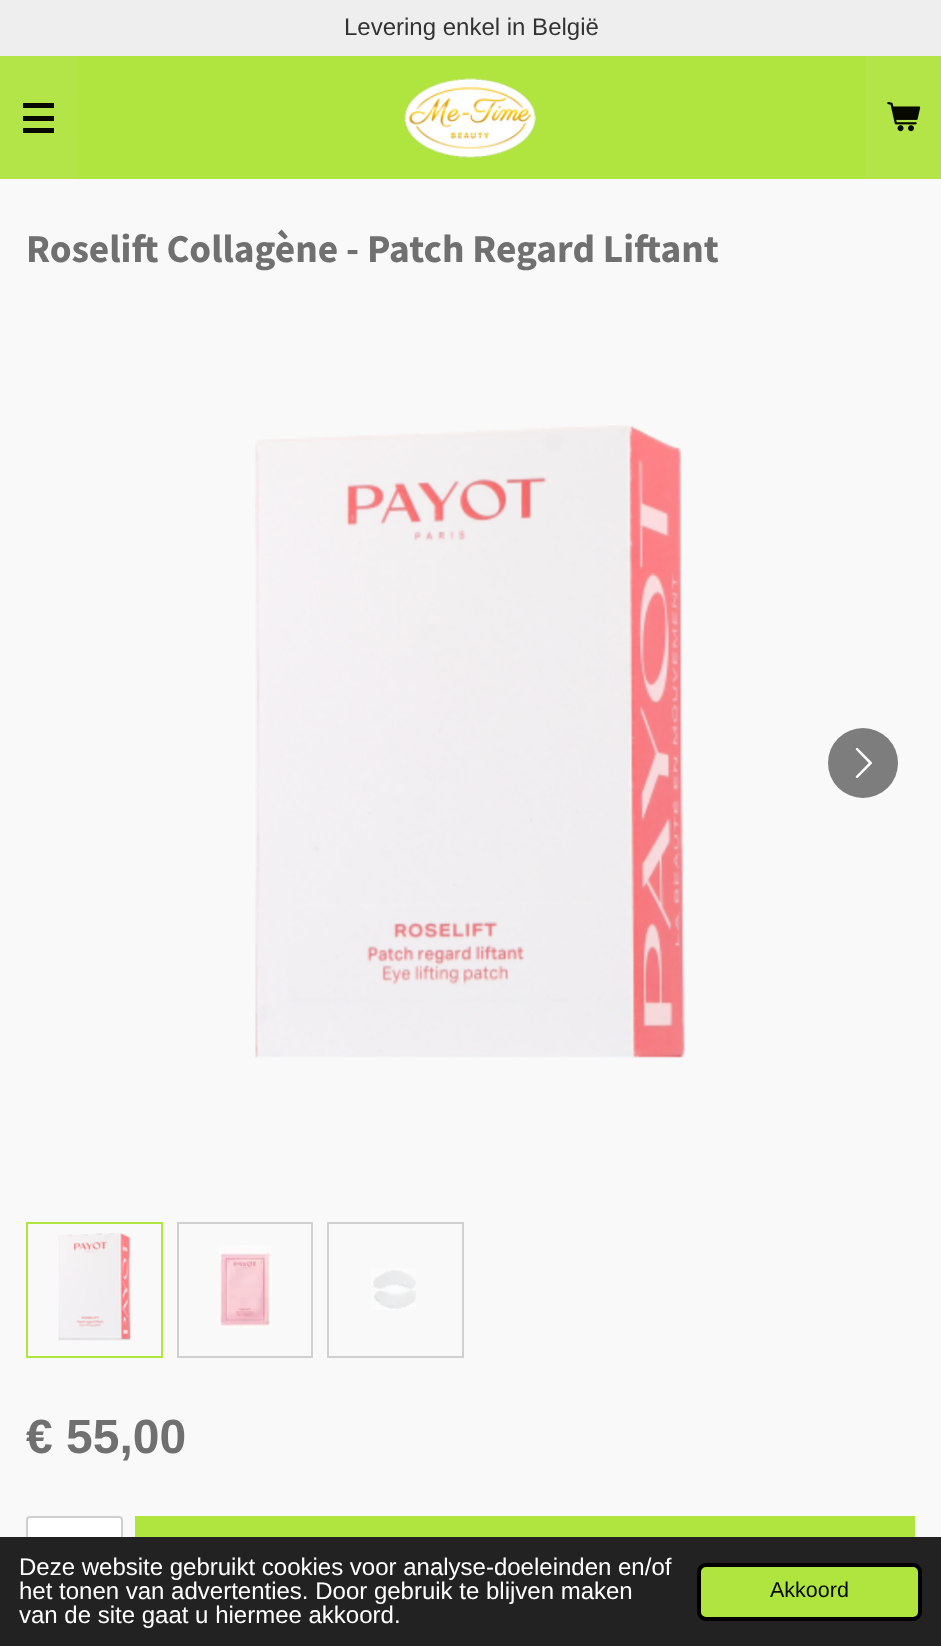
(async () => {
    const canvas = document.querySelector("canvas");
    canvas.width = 941;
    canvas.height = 1646;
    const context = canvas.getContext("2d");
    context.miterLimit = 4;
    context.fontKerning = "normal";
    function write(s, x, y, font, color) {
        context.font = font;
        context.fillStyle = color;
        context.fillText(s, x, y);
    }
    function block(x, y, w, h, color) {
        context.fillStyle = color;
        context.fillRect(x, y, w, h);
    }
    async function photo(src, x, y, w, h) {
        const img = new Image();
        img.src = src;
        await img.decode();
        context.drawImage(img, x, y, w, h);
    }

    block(0, 0, 941, 1646, "rgb(249, 249, 249)");
    block(0, 0, 941, 56, "rgb(238, 238, 238)");
    write("Levering enkel in België", 344, 35, "24px Liberation Sans", "rgb(51, 51, 51)");
    block(0, 56, 77, 123, "rgb(180, 229, 72)");
    block(23, 116, 31, 5, "rgb(7, 9, 1)");
    block(23, 103, 31, 5, "rgb(7, 9, 1)");
    block(23, 128, 31, 5, "rgb(7, 9, 1)");
    block(77, 56, 788, 123, "rgb(176, 228, 63)");
    await photo("media/1.png", 404, 78, 132, 80);
    block(865, 56, 76, 123, "rgb(180, 229, 72)");
    await photo("media/2.png", 887, 102, 34, 30);
    write("Roselift Collagène - Patch Regard Liftant", 26, 262, "bold 39.4px Source Sans Pro", "rgb(112, 112, 112)");
    await photo("media/3.png", 255, 425, 431, 633);
    context.fillStyle = "rgb(125, 125, 125)";
    context.beginPath();
    context.arc(863, 763, 35, 0, Math.PI * 2);
    context.fill();
    await photo("media/4.png", 855, 747, 17, 31);
    context.strokeStyle = "rgb(176, 228, 63)";
    context.lineWidth = 2;
    context.strokeRect(27, 1223, 135, 134);
    await photo("media/5.png", 58, 1233, 73, 108);
    context.strokeStyle = "rgb(208, 208, 208)";
    context.strokeRect(178, 1223, 134, 134);
    await photo("media/6.png", 219, 1245, 53, 83);
    context.strokeRect(328, 1223, 135, 134);
    await photo("media/7.png", 371, 1268, 45, 42);
    write("€ 55,00", 26, 1453, "bold 48px Liberation Sans", "rgb(112, 112, 112)");
    context.fillStyle = "rgb(255, 255, 255)";
    context.beginPath();
    context.roundRect(27, 1517, 95, 66, 3);
    context.fill();
    context.strokeStyle = "rgb(207, 207, 207)";
    context.stroke();
    block(135, 1516, 780, 21, "rgb(176, 228, 63)");
    block(0, 1537, 941, 109, "rgb(34, 34, 34)");
    write("Deze website gebruikt cookies voor analyse-doeleinden en/of", 19, 1575, "24px Liberation Sans", "rgb(255, 255, 255)");
    write("het tonen van advertenties. Door gebruik te blijven maken", 19, 1599, "24px Liberation Sans", "rgb(255, 255, 255)");
    write("van de site gaat u hiermee akkoord.", 19, 1623, "24px Liberation Sans", "rgb(255, 255, 255)");
    context.fillStyle = "rgb(176, 228, 63)";
    context.beginPath();
    context.roundRect(699, 1565, 221, 54, 7);
    context.fill();
    context.strokeStyle = "rgb(0, 0, 0)";
    context.lineWidth = 4;
    context.stroke();
    write("Akkoord", 770, 1597, "21.5px Liberation Sans", "rgb(7, 9, 1)");
})();
